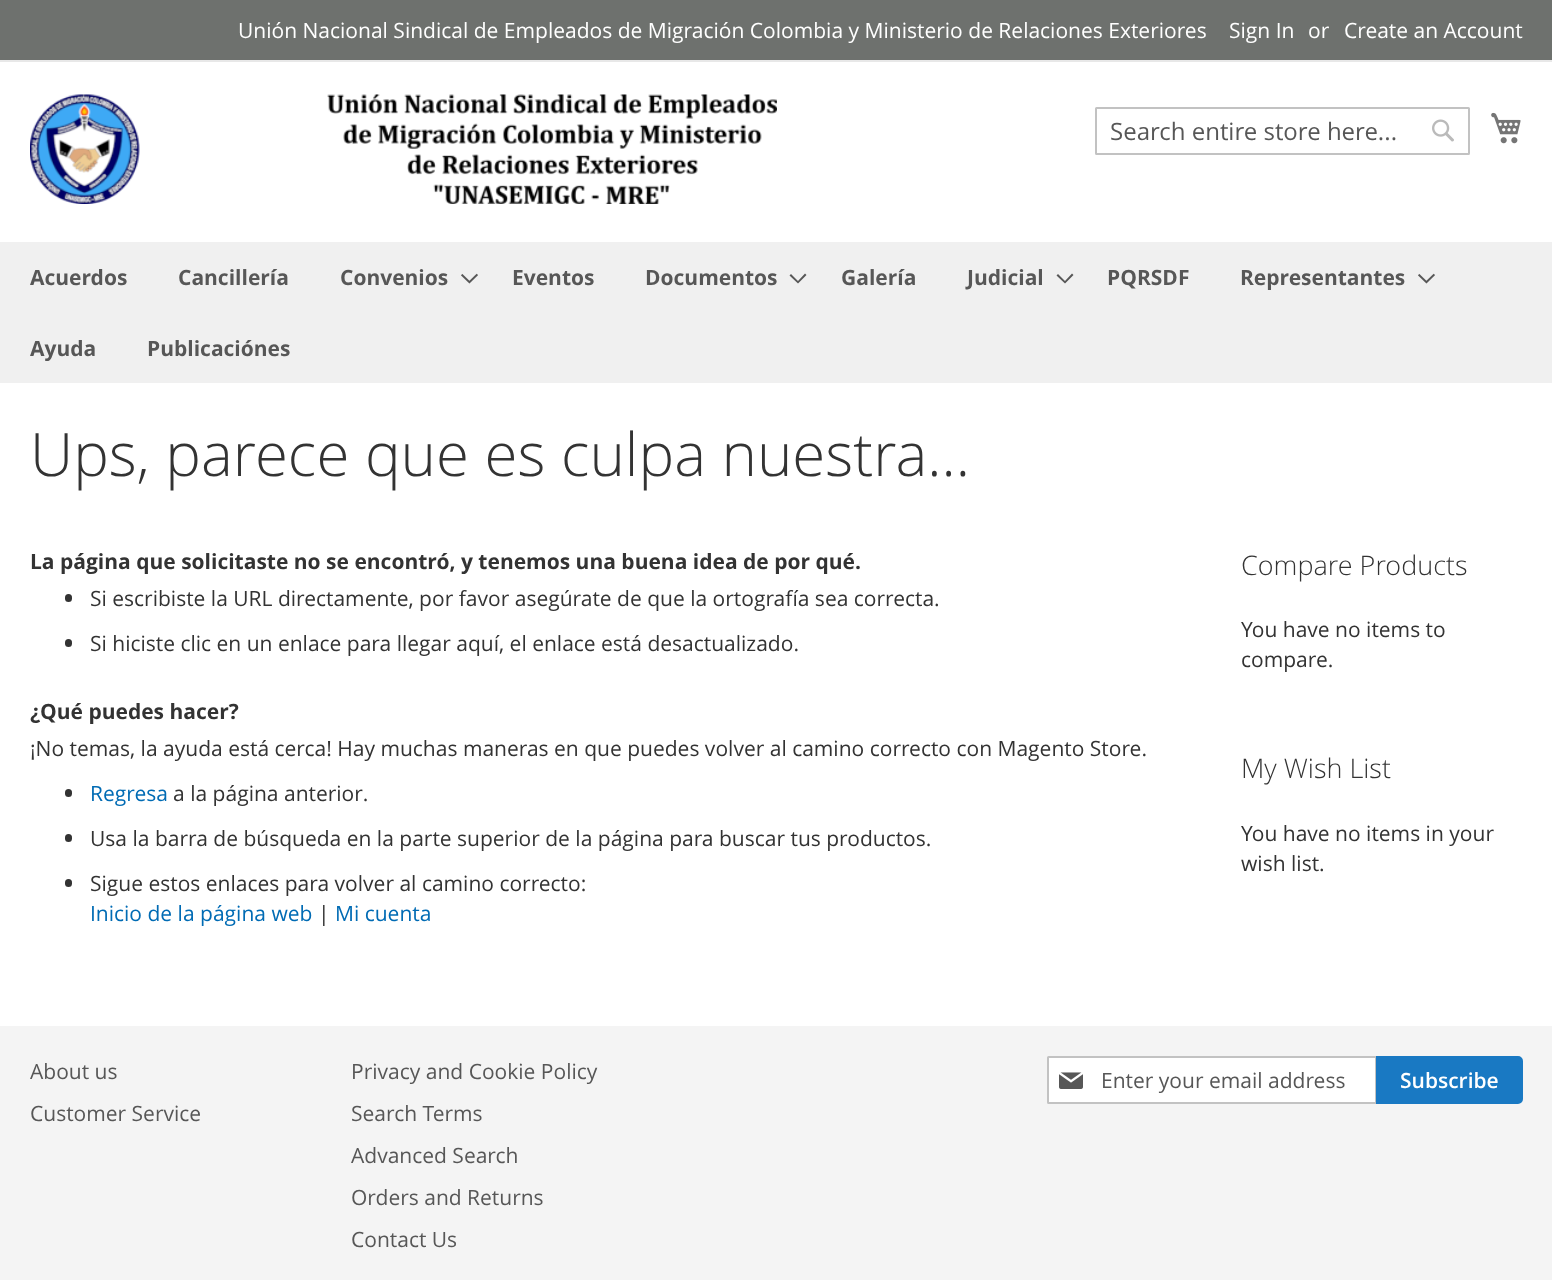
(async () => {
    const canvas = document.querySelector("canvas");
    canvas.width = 1552;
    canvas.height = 1280;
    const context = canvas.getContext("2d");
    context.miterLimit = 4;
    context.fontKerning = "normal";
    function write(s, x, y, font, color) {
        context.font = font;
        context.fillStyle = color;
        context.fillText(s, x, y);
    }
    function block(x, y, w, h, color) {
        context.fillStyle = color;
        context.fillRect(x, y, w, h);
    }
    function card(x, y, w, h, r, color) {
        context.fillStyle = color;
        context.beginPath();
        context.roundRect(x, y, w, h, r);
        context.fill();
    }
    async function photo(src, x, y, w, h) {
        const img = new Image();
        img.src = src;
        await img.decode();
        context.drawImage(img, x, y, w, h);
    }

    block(0, 0, 1552, 1280, "rgb(255, 255, 255)");
    block(0, 0, 1552, 60, "rgb(110, 113, 110)");
    block(0, 60, 1552, 2, "rgb(232, 232, 232)");
    write("Unión Nacional Sindical de Empleados de Migración Colombia y Ministerio de Relaciones Exteriores", 238, 38, "21px Open Sans", "rgb(255, 255, 255)");
    write("Sign In", 1229, 38, "21px Open Sans", "rgb(255, 255, 255)");
    write("or", 1308, 38, "21px Open Sans", "rgb(255, 255, 255)");
    write("Create an Account", 1344, 38, "21px Open Sans", "rgb(255, 255, 255)");
    await photo("media/1.png", 30, 94, 747, 110);
    context.beginPath();
    context.roundRect(1096, 108, 373, 46, 0.5);
    context.strokeStyle = "rgb(194, 194, 194)";
    context.lineWidth = 2;
    context.stroke();
    write("Search entire store here...", 1110, 140, "24px Open Sans", "rgb(87, 87, 87)");
    await photo("media/2.png", 1432, 119, 22, 23);
    await photo("media/3.png", 1491, 112, 30, 32);
    block(0, 242, 1552, 141, "rgb(240, 240, 240)");
    write("Acuerdos", 30, 285, "bold 21px Open Sans", "rgb(87, 87, 87)");
    write("Cancillería", 178, 285, "bold 21px Open Sans", "rgb(87, 87, 87)");
    write("Convenios", 340, 285, "bold 21px Open Sans", "rgb(87, 87, 87)");
    await photo("media/4.png", 461, 273, 17, 11);
    write("Eventos", 512, 285, "bold 21px Open Sans", "rgb(87, 87, 87)");
    write("Documentos", 645, 285, "bold 21px Open Sans", "rgb(87, 87, 87)");
    context.beginPath();
    context.moveTo(798, 281);
    context.lineTo(791, 274);
    context.lineTo(789.5, 275.5);
    context.lineTo(798, 283.5);
    context.lineTo(806.5, 275);
    context.lineTo(805, 273.5);
    context.closePath();
    context.fill();
    write("Galería", 841, 285, "bold 21px Open Sans", "rgb(87, 87, 87)");
    write("Judicial", 967, 285, "bold 21px Open Sans", "rgb(87, 87, 87)");
    context.beginPath();
    context.moveTo(1065, 281);
    context.lineTo(1058, 274);
    context.lineTo(1056.5, 275.5);
    context.lineTo(1065, 283.5);
    context.lineTo(1073.5, 275);
    context.lineTo(1072, 273.5);
    context.closePath();
    context.fill();
    write("PQRSDF", 1107, 285, "bold 21px Open Sans", "rgb(87, 87, 87)");
    write("Representantes", 1240, 285, "bold 21px Open Sans", "rgb(87, 87, 87)");
    await photo("media/4.png", 1418, 273, 17, 11);
    write("Ayuda", 30, 356, "bold 21px Open Sans", "rgb(87, 87, 87)");
    write("Publicaciónes", 147, 356, "bold 21px Open Sans", "rgb(87, 87, 87)");
    write("Ups, parece que es culpa nuestra...", 30, 476, "300 60px Open Sans", "rgb(51, 51, 51)");
    write("La página que solicitaste no se encontró, y tenemos una buena idea de por qué.", 30, 569, "bold 21px Open Sans", "rgb(51, 51, 51)");
    card(65, 594, 7, 8, 3.5, "rgb(51, 51, 51)");
    write("Si escribiste la URL directamente, por favor asegúrate de que la ortografía sea correcta.", 90, 606, "21px Open Sans", "rgb(51, 51, 51)");
    card(65, 639, 7, 8, 3.5, "rgb(51, 51, 51)");
    write("Si hiciste clic en un enlace para llegar aquí, el enlace está desactualizado.", 90, 651, "21px Open Sans", "rgb(51, 51, 51)");
    write("¿Qué puedes hacer?", 30, 719, "bold 21px Open Sans", "rgb(51, 51, 51)");
    write("¡No temas, la ayuda está cerca! Hay muchas maneras en que puedes volver al camino correcto con Magento Store.", 30, 756, "21px Open Sans", "rgb(51, 51, 51)");
    card(65, 789, 7, 8, 3.5, "rgb(51, 51, 51)");
    write("Regresa", 90, 801, "21px Open Sans", "rgb(0, 107, 180)");
    write("a la página anterior.", 173, 801, "21px Open Sans", "rgb(51, 51, 51)");
    card(65, 834, 7, 8, 3.5, "rgb(51, 51, 51)");
    write("Usa la barra de búsqueda en la parte superior de la página para buscar tus productos.", 90, 846, "21px Open Sans", "rgb(51, 51, 51)");
    card(65, 879, 7, 8, 3.5, "rgb(51, 51, 51)");
    write("Sigue estos enlaces para volver al camino correcto:", 90, 891, "21px Open Sans", "rgb(51, 51, 51)");
    write("Inicio de la página web", 90, 921, "21px Open Sans", "rgb(0, 107, 180)");
    write("|", 318, 921, "21px Open Sans", "rgb(51, 51, 51)");
    write("Mi cuenta", 335, 921, "21px Open Sans", "rgb(0, 107, 180)");
    write("Compare Products", 1241, 575, "300 27px Open Sans", "rgb(51, 51, 51)");
    write("You have no items to", 1241, 637, "21px Open Sans", "rgb(51, 51, 51)");
    write("compare.", 1241, 667, "21px Open Sans", "rgb(51, 51, 51)");
    write("My Wish List", 1241, 778, "300 27px Open Sans", "rgb(51, 51, 51)");
    write("You have no items in your", 1241, 841, "21px Open Sans", "rgb(51, 51, 51)");
    write("wish list.", 1241, 871, "21px Open Sans", "rgb(51, 51, 51)");
    block(0, 1026, 1552, 254, "rgb(244, 244, 244)");
    write("About us", 30, 1079, "21px Open Sans", "rgb(87, 87, 87)");
    write("Customer Service", 30, 1121, "21px Open Sans", "rgb(87, 87, 87)");
    write("Privacy and Cookie Policy", 351, 1079, "21px Open Sans", "rgb(87, 87, 87)");
    write("Search Terms", 351, 1121, "21px Open Sans", "rgb(87, 87, 87)");
    write("Advanced Search", 351, 1163, "21px Open Sans", "rgb(87, 87, 87)");
    write("Orders and Returns", 351, 1205, "21px Open Sans", "rgb(87, 87, 87)");
    write("Contact Us", 351, 1247, "21px Open Sans", "rgb(87, 87, 87)");
    context.fillStyle = "rgb(255, 255, 255)";
    context.beginPath();
    context.roundRect(1048, 1057, 328, 46, 0.5);
    context.fill();
    context.stroke();
    await photo("media/5.png", 1059, 1072, 24, 17);
    write("Enter your email address", 1101, 1088, "21px Open Sans", "rgb(87, 87, 87)");
    context.fillStyle = "rgb(25, 121, 195)";
    context.beginPath();
    context.roundRect(1377, 1057, 145, 46, [0, 4, 4, 0]);
    context.fill();
    context.strokeStyle = "rgb(25, 121, 195)";
    context.stroke();
    write("Subscribe", 1400, 1088, "600 21px Open Sans", "rgb(255, 255, 255)");
})();
